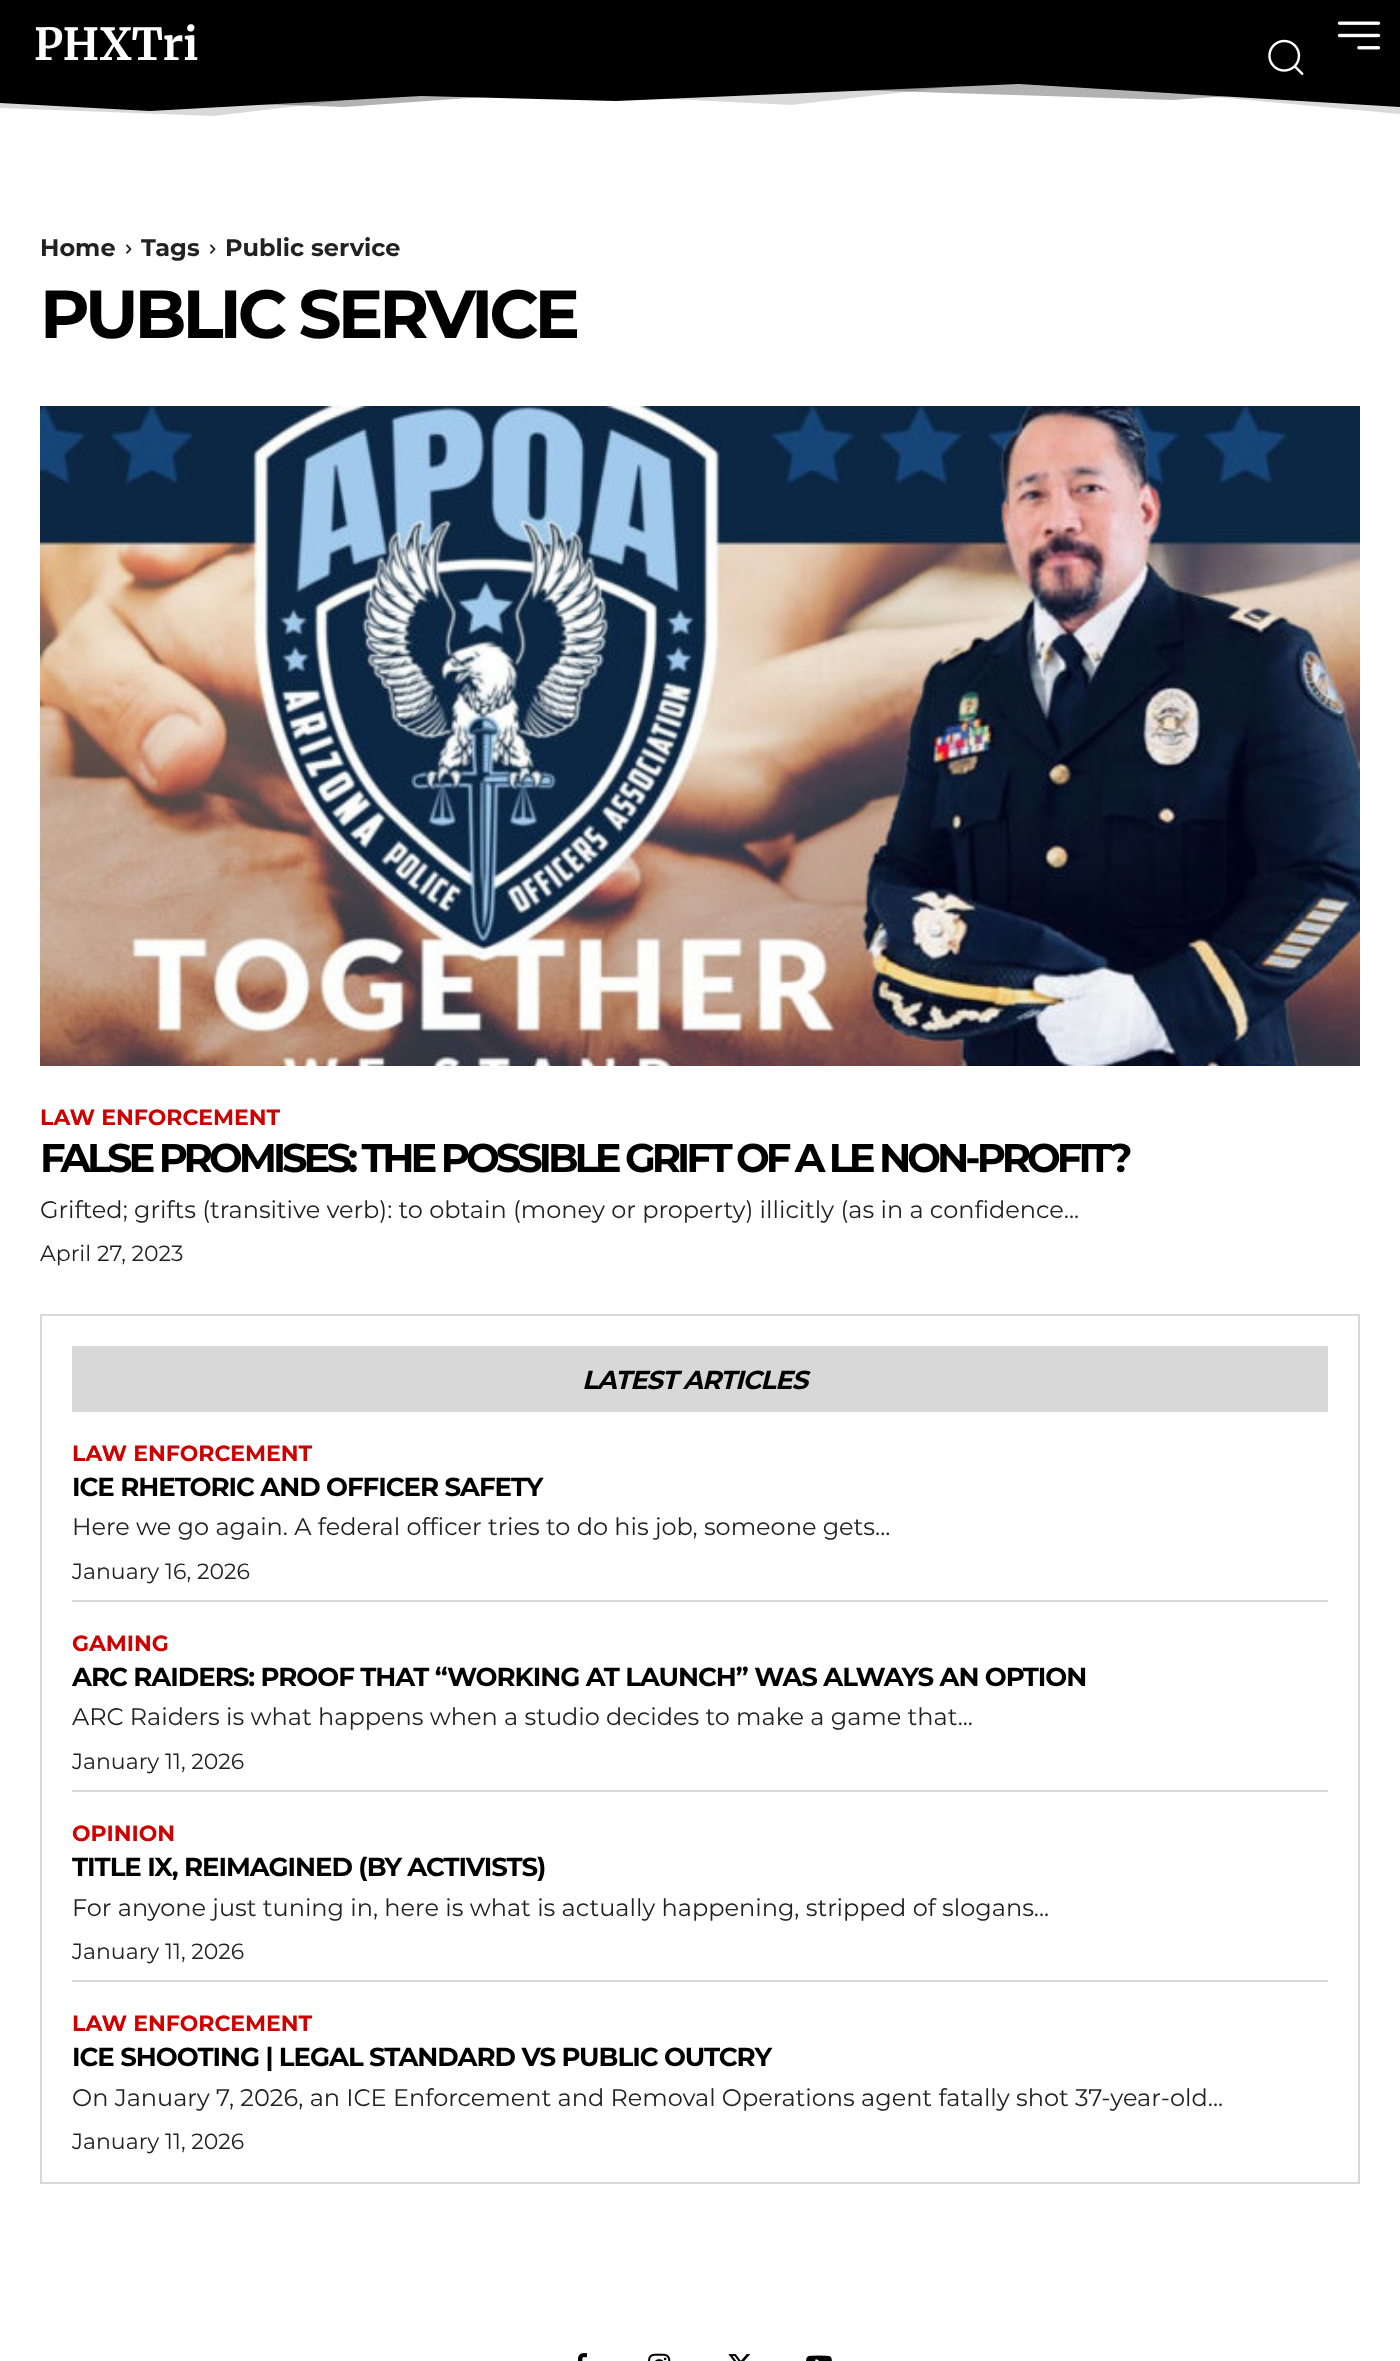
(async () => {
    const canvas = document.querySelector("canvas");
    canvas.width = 1400;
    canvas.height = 2361;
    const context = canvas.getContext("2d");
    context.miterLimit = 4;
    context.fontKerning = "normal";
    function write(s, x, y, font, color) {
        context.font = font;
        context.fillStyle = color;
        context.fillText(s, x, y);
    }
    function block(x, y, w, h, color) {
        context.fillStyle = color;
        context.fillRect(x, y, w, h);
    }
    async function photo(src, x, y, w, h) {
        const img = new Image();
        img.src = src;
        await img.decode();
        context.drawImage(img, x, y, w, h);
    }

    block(0, 0, 1400, 2361, "rgb(255, 255, 255)");
    block(0, 0, 1400, 82, "rgb(0, 0, 0)");
    write("PHXTri", 34, 60, "bold 44px Merriweather", "rgb(255, 255, 255)");
    await photo("media/1.png", 1268, 39, 36, 36);
    await photo("media/2.png", 1337, 21, 44, 29);
    context.save();
    context.beginPath();
    context.rect(0, 82, 1400, 40);
    context.clip();
    context.fillStyle = "rgb(0, 0, 0)";
    context.beginPath();
    context.moveTo(0, 71);
    context.lineTo(0, 103);
    context.lineTo(150, 111);
    context.lineTo(421, 96);
    context.lineTo(616, 101);
    context.lineTo(1019, 84);
    context.lineTo(1400, 107);
    context.lineTo(1400, 71);
    context.closePath();
    context.fill();
    context.fillStyle = "rgba(0, 0, 0, 0.3)";
    context.beginPath();
    context.moveTo(0, 71);
    context.lineTo(0, 95);
    context.lineTo(344, 107);
    context.lineTo(664, 84);
    context.lineTo(1173, 100);
    context.lineTo(1400, 84);
    context.lineTo(1400, 71);
    context.closePath();
    context.fill();
    context.fillStyle = "rgba(0, 0, 0, 0.15)";
    context.beginPath();
    context.moveTo(0, 71);
    context.lineTo(0, 108);
    context.lineTo(214, 116);
    context.lineTo(449, 88);
    context.lineTo(791, 105);
    context.lineTo(1019, 79);
    context.lineTo(1400, 114);
    context.lineTo(1400, 71);
    context.closePath();
    context.fill();
    context.restore();
    write("Home", 40, 256, "bold 24px Montserrat", "rgb(34, 34, 34)");
    await photo("media/3.png", 126, 244, 6, 10);
    write("Tags", 141, 256, "bold 24px Montserrat", "rgb(34, 34, 34)");
    await photo("media/3.png", 210, 244, 6, 10);
    write("Public service", 225, 256, "bold 24px Montserrat", "rgb(34, 34, 34)");
    context.letterSpacing = "-4px";
    write("PUBLIC SERVICE", 40, 338, "bold 68px Montserrat", "rgb(0, 0, 0)");
    await photo("media/4.png", 40, 406, 1320, 660);
    context.letterSpacing = "0px";
    write("LAW ENFORCEMENT", 40, 1125, "bold 22px Montserrat", "rgb(206, 0, 0)");
    context.letterSpacing = "-4px";
    write("FALSE PROMISES: THE POSSIBLE GRIFT OF A LE NON-PROFIT?", 40, 1172, "bold 40px Montserrat", "rgb(0, 0, 0)");
    context.letterSpacing = "0px";
    write("Grifted; grifts (transitive verb): to obtain (money or property) illicitly (as in a confidence...", 40, 1218, "24px Montserrat", "rgb(34, 34, 34)");
    write("April 27, 2023", 40, 1261, "22px Montserrat", "rgb(34, 34, 34)");
    context.strokeStyle = "rgb(216, 216, 216)";
    context.lineWidth = 2;
    context.strokeRect(41, 1315, 1318, 868);
    block(72, 1346, 1256, 66, "rgb(216, 216, 216)");
    context.letterSpacing = "-1px";
    write("LATEST ARTICLES", 582, 1389, "italic bold 26px Montserrat", "rgb(0, 0, 0)");
    context.letterSpacing = "0px";
    write("LAW ENFORCEMENT", 72, 1461, "bold 22px Montserrat", "rgb(206, 0, 0)");
    context.letterSpacing = "-1px";
    write("ICE RHETORIC AND OFFICER SAFETY", 72, 1496, "bold 26px Montserrat", "rgb(0, 0, 0)");
    context.letterSpacing = "0px";
    write("Here we go again. A federal officer tries to do his job, someone gets...", 72, 1535, "24px Montserrat", "rgb(34, 34, 34)");
    write("January 16, 2026", 72, 1579, "22px Montserrat", "rgb(34, 34, 34)");
    block(72, 1600, 1256, 2, "rgb(216, 216, 216)");
    write("GAMING", 72, 1651, "bold 22px Montserrat", "rgb(206, 0, 0)");
    context.letterSpacing = "-1px";
    write("ARC RAIDERS: PROOF THAT “WORKING AT LAUNCH” WAS ALWAYS AN OPTION", 72, 1686, "bold 26px Montserrat", "rgb(0, 0, 0)");
    context.letterSpacing = "0px";
    write("ARC Raiders is what happens when a studio decides to make a game that...", 72, 1725, "24px Montserrat", "rgb(34, 34, 34)");
    write("January 11, 2026", 72, 1769, "22px Montserrat", "rgb(34, 34, 34)");
    block(72, 1790, 1256, 2, "rgb(216, 216, 216)");
    write("OPINION", 72, 1841, "bold 22px Montserrat", "rgb(206, 0, 0)");
    context.letterSpacing = "-1px";
    write("TITLE IX, REIMAGINED (BY ACTIVISTS)", 72, 1876, "bold 26px Montserrat", "rgb(0, 0, 0)");
    context.letterSpacing = "0px";
    write("For anyone just tuning in, here is what is actually happening, stripped of slogans...", 72, 1916, "24px Montserrat", "rgb(34, 34, 34)");
    write("January 11, 2026", 72, 1959, "22px Montserrat", "rgb(34, 34, 34)");
    block(72, 1980, 1256, 2, "rgb(216, 216, 216)");
    write("LAW ENFORCEMENT", 72, 2031, "bold 22px Montserrat", "rgb(206, 0, 0)");
    context.letterSpacing = "-1px";
    write("ICE SHOOTING | LEGAL STANDARD VS PUBLIC OUTCRY", 72, 2066, "bold 26px Montserrat", "rgb(0, 0, 0)");
    context.letterSpacing = "0px";
    write("On January 7, 2026, an ICE Enforcement and Removal Operations agent fatally shot 37-year-old...", 72, 2106, "24px Montserrat", "rgb(34, 34, 34)");
    write("January 11, 2026", 72, 2149, "22px Montserrat", "rgb(34, 34, 34)");
    await photo("media/5.png", 577, 2353, 10, 8);
    await photo("media/6.png", 648, 2353, 23, 8);
    await photo("media/7.png", 728, 2354, 23, 7);
    await photo("media/8.png", 806, 2355, 26, 6);
})();
